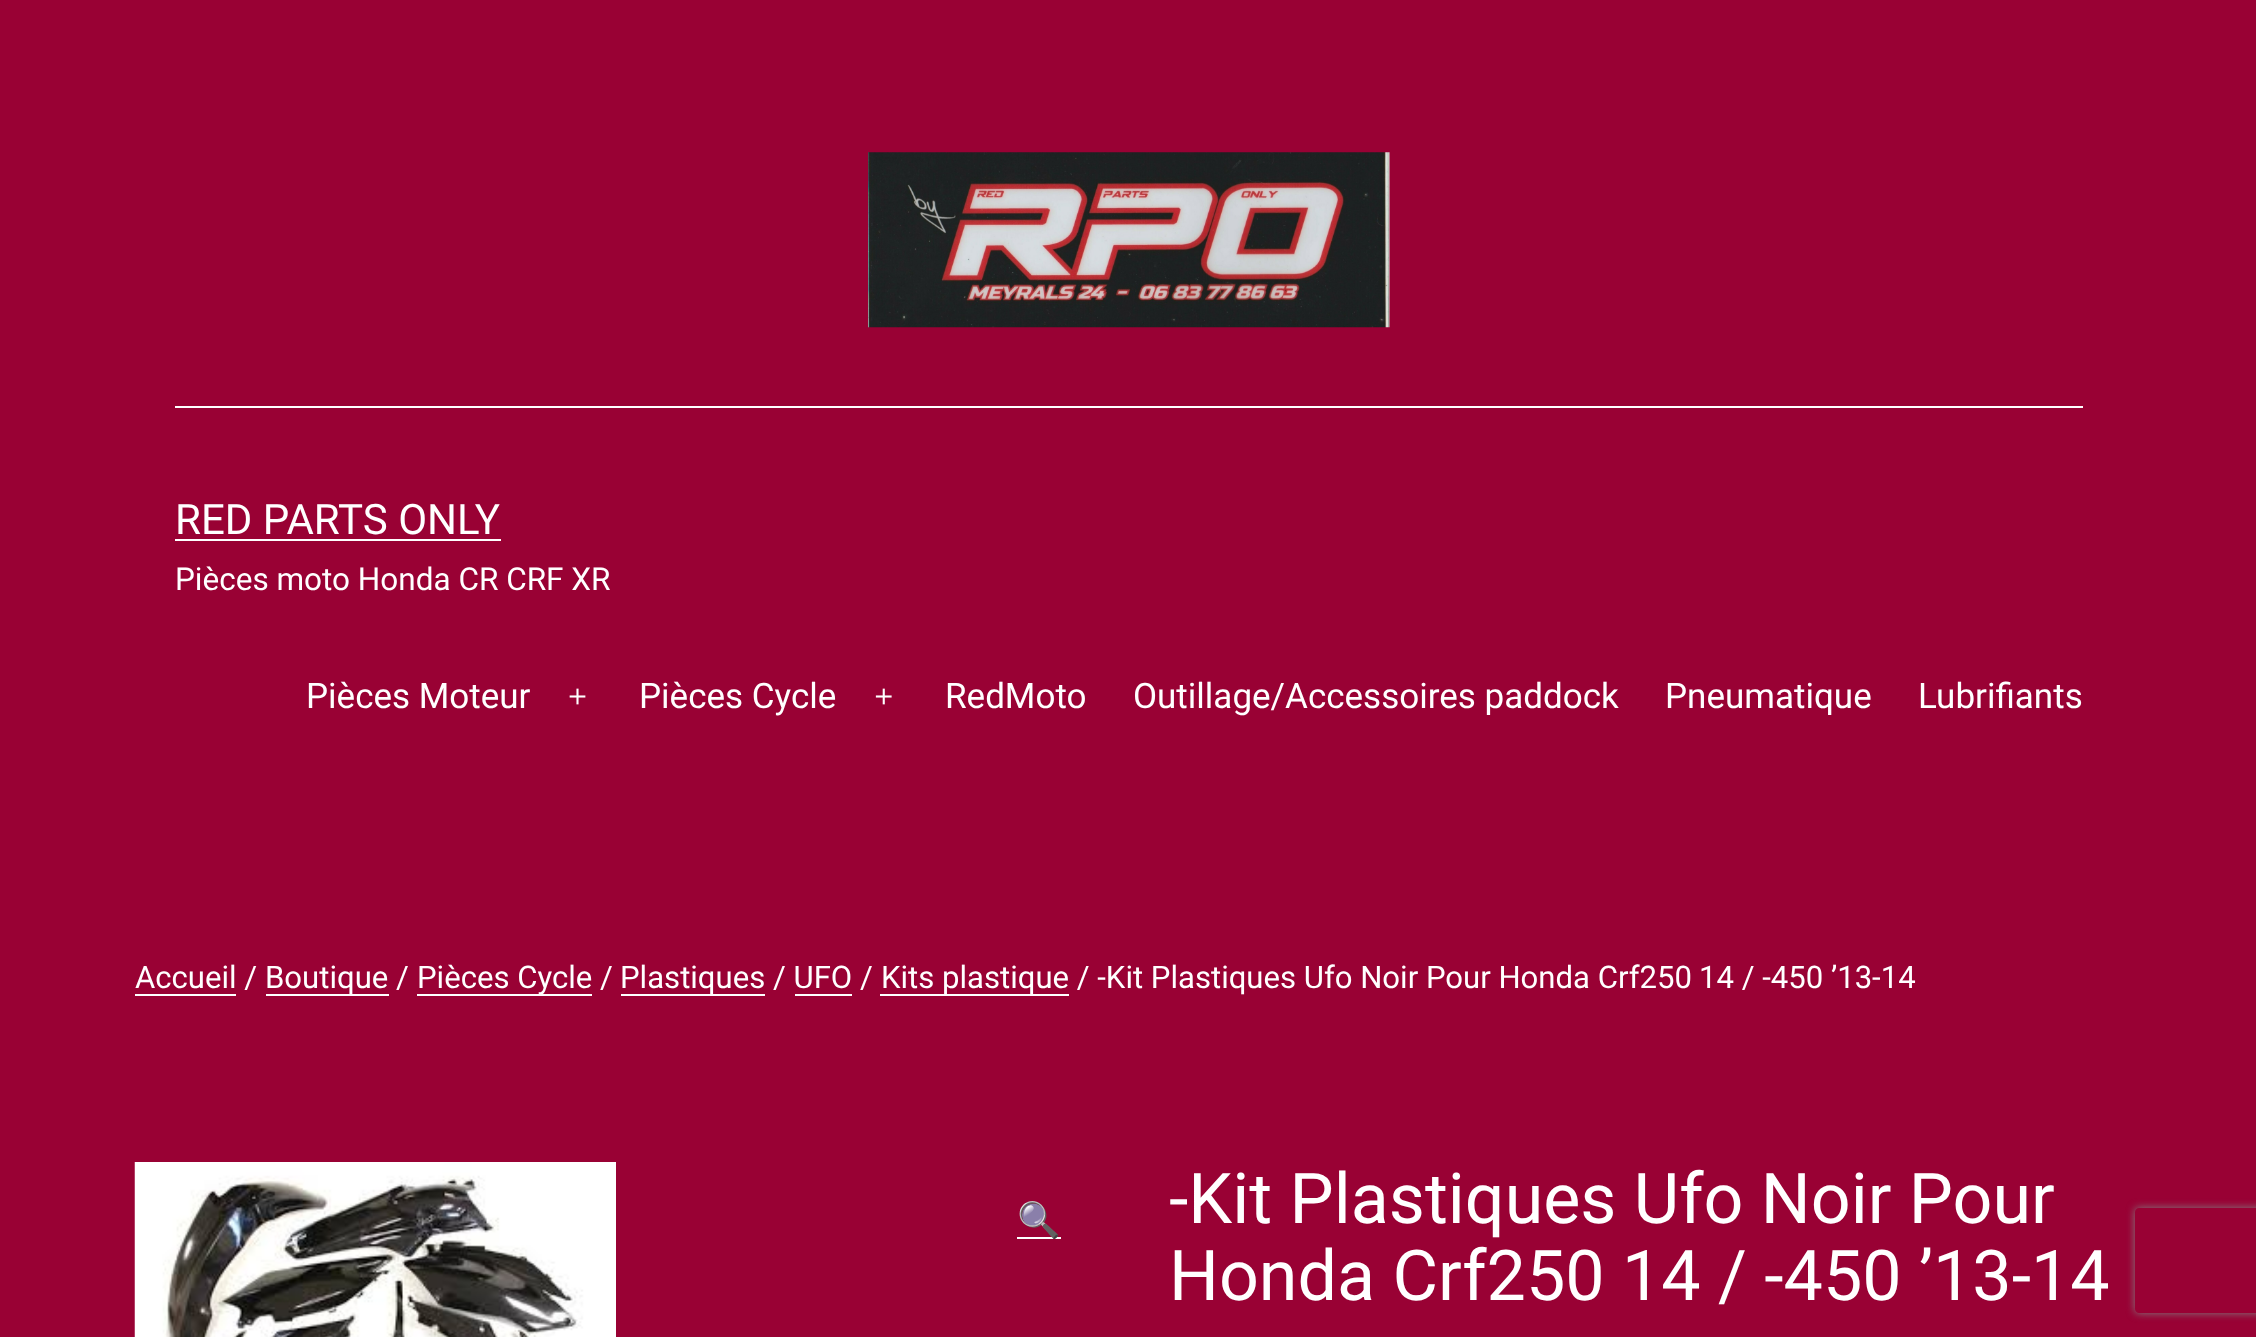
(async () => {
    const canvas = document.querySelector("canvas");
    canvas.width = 2256;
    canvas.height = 1337;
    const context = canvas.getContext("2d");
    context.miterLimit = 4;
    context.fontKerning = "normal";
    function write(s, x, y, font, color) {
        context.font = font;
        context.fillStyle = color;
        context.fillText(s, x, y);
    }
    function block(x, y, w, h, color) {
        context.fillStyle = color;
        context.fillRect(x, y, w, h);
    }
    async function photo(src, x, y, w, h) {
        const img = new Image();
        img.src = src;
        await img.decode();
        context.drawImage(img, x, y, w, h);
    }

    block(0, 0, 2256, 1337, "rgb(153, 1, 52)");
    block(175, 406, 1908, 2, "rgb(255, 255, 255)");
    await photo("media/1.png", 868, 152, 522, 176);
    write("RED PARTS ONLY", 175, 534, "42px Roboto", "rgb(255, 255, 255)");
    block(175, 539, 326, 2, "rgb(255, 255, 255)");
    write("Pièces moto Honda CR CRF XR", 175, 590, "31.5px Roboto", "rgb(255, 255, 255)");
    write("Pièces Moteur", 306, 708, "35px Roboto", "rgb(255, 255, 255)");
    await photo("media/2.png", 569, 688, 17, 17);
    write("Pièces Cycle", 639, 708, "35px Roboto", "rgb(255, 255, 255)");
    await photo("media/3.png", 875, 688, 17, 17);
    write("RedMoto", 945, 708, "35px Roboto", "rgb(255, 255, 255)");
    write("Outillage/Accessoires paddock", 1133, 708, "35px Roboto", "rgb(255, 255, 255)");
    write("Pneumatique", 1665, 708, "35px Roboto", "rgb(255, 255, 255)");
    write("Lubrifiants", 1918, 708, "35px Roboto", "rgb(255, 255, 255)");
    write("Accueil /", 135, 988, "31.1px Roboto", "rgb(255, 255, 255)");
    block(135, 994, 101, 2, "rgb(255, 255, 255)");
    block(266, 994, 123, 2, "rgb(255, 255, 255)");
    write("Boutique /", 265, 988, "31.1px Roboto", "rgb(255, 255, 255)");
    block(417, 994, 175, 2, "rgb(255, 255, 255)");
    write("Pièces Cycle /", 417, 988, "31.1px Roboto", "rgb(255, 255, 255)");
    block(621, 994, 144, 2, "rgb(255, 255, 255)");
    write("Plastiques / UFO /", 620, 988, "31.1px Roboto", "rgb(255, 255, 255)");
    block(880, 994, 189, 2, "rgb(255, 255, 255)");
    write("Kits plastique / -Kit Plastiques Ufo Noir Pour Honda Crf250", 881, 988, "31.1px Roboto", "rgb(255, 255, 255)");
    write("14 / -450 ’13-14", 1699, 988, "31.1px Roboto", "rgb(255, 255, 255)");
    block(795, 994, 57, 2, "rgb(255, 255, 255)");
    await photo("media/4.png", 134, 1162, 482, 175);
    block(1017, 1237, 44, 2, "rgb(255, 255, 255)");
    write("🔍", 1017, 1232, "35px Noto Color Emoji", "rgb(255, 255, 255)");
    write("-Kit Plastiques Ufo Noir Pour", 1169, 1223, "70px Roboto", "rgb(255, 255, 255)");
    write("Honda Crf250 14 / -450 ’13-14", 1169, 1300, "70px Roboto", "rgb(255, 255, 255)");
    context.save();
    context.beginPath();
    context.moveTo(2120, 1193);
    context.lineTo(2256, 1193);
    context.lineTo(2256, 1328);
    context.lineTo(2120, 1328);
    context.closePath();
    context.moveTo(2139, 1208);
    context.lineTo(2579, 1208);
    context.bezierCurveTo(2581, 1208, 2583, 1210, 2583, 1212);
    context.lineTo(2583, 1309);
    context.bezierCurveTo(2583, 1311, 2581, 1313, 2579, 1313);
    context.lineTo(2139, 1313);
    context.bezierCurveTo(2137, 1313, 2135, 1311, 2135, 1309);
    context.lineTo(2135, 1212);
    context.bezierCurveTo(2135, 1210, 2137, 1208, 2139, 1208);
    context.closePath();
    context.clip("evenodd");
    context.fillStyle = "rgb(128, 128, 128)";
    context.filter = "blur(4.5px)";
    context.beginPath();
    context.roundRect(2135, 1208, 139, 105, 4);
    context.fill();
    context.filter = "none";
    context.restore();
})();
